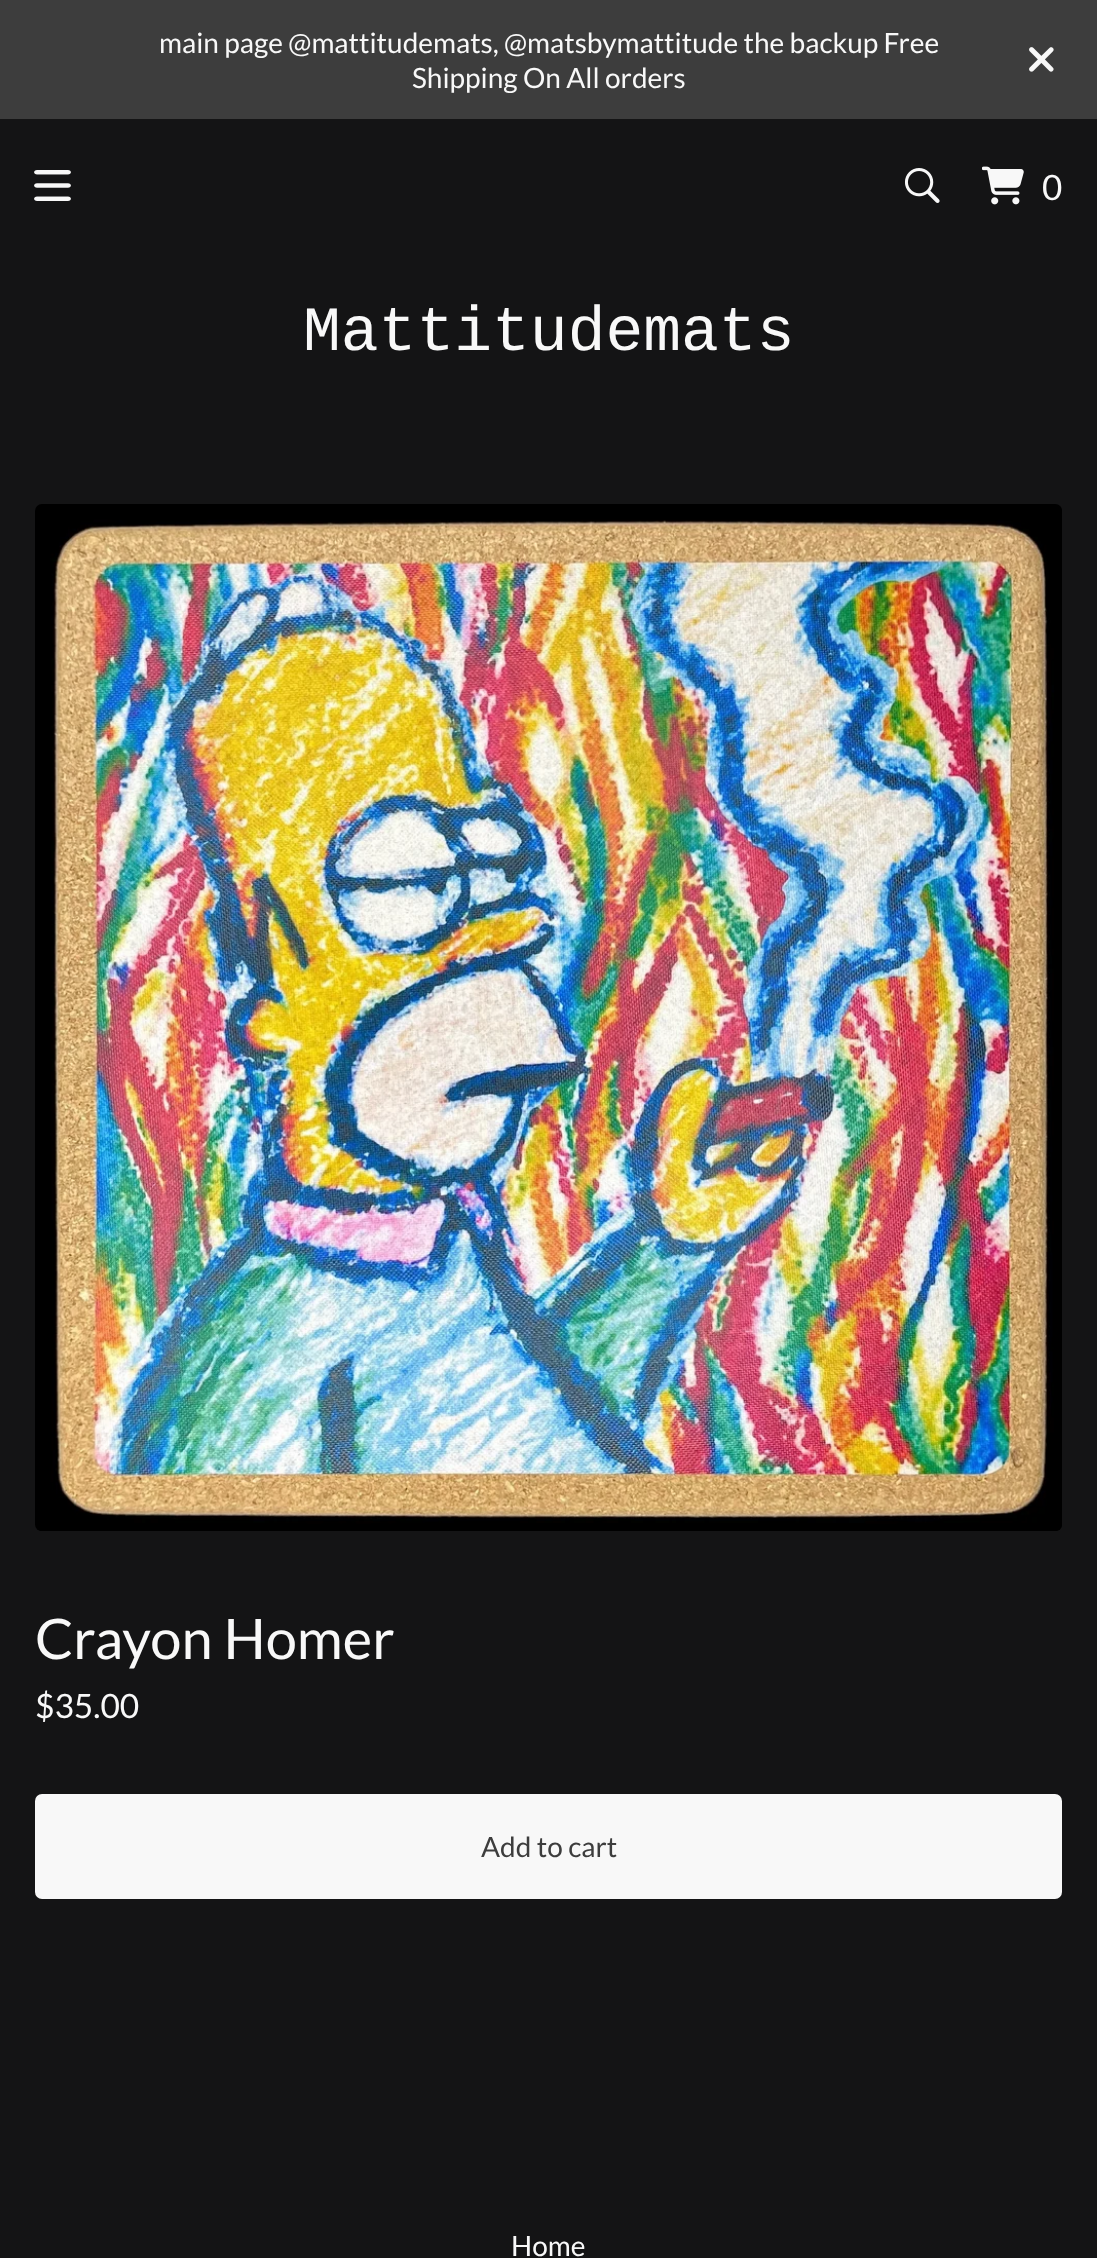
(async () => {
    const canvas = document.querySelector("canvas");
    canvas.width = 1097;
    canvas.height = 2258;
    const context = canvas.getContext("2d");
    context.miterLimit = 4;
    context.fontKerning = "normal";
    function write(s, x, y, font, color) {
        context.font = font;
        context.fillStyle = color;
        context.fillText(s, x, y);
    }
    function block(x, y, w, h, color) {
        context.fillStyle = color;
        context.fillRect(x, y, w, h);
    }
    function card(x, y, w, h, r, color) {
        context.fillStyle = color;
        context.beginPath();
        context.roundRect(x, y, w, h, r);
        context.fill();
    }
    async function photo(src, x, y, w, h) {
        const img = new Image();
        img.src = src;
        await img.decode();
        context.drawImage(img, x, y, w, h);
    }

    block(0, 0, 1097, 2258, "rgb(20, 20, 21)");
    block(0, 0, 1097, 119, "rgb(61, 61, 61)");
    write("main page @mattitudemats, @matsbymattitude the backup Free", 159, 53, "28px Lato", "rgb(248, 248, 248)");
    write("Shipping On All orders", 412, 88, "28px Lato", "rgb(248, 248, 248)");
    await photo("media/1.png", 1029, 47, 25, 25);
    await photo("media/2.png", 34, 170, 37, 31);
    await photo("media/3.png", 905, 168, 35, 35);
    await photo("media/4.png", 982, 166, 42, 39);
    write("0", 1042, 200, "35px Lato", "rgb(248, 248, 248)");
    write("Mattitudemats", 303, 350, "63px Liberation Mono", "rgb(248, 248, 248)");
    await photo("media/5.png", 35, 504, 1027, 1027);
    write("Crayon Homer", 35, 1659, "56px Lato", "rgb(248, 248, 248)");
    write("$35.00", 35, 1718, "33.5px Lato", "rgb(248, 248, 248)");
    card(35, 1794, 1027, 105, 7, "rgb(248, 248, 248)");
    write("Add to cart", 481, 1857, "28px Lato", "rgb(61, 61, 61)");
    write("Home", 511, 2256, "28px Lato", "rgb(248, 248, 248)");
})();
